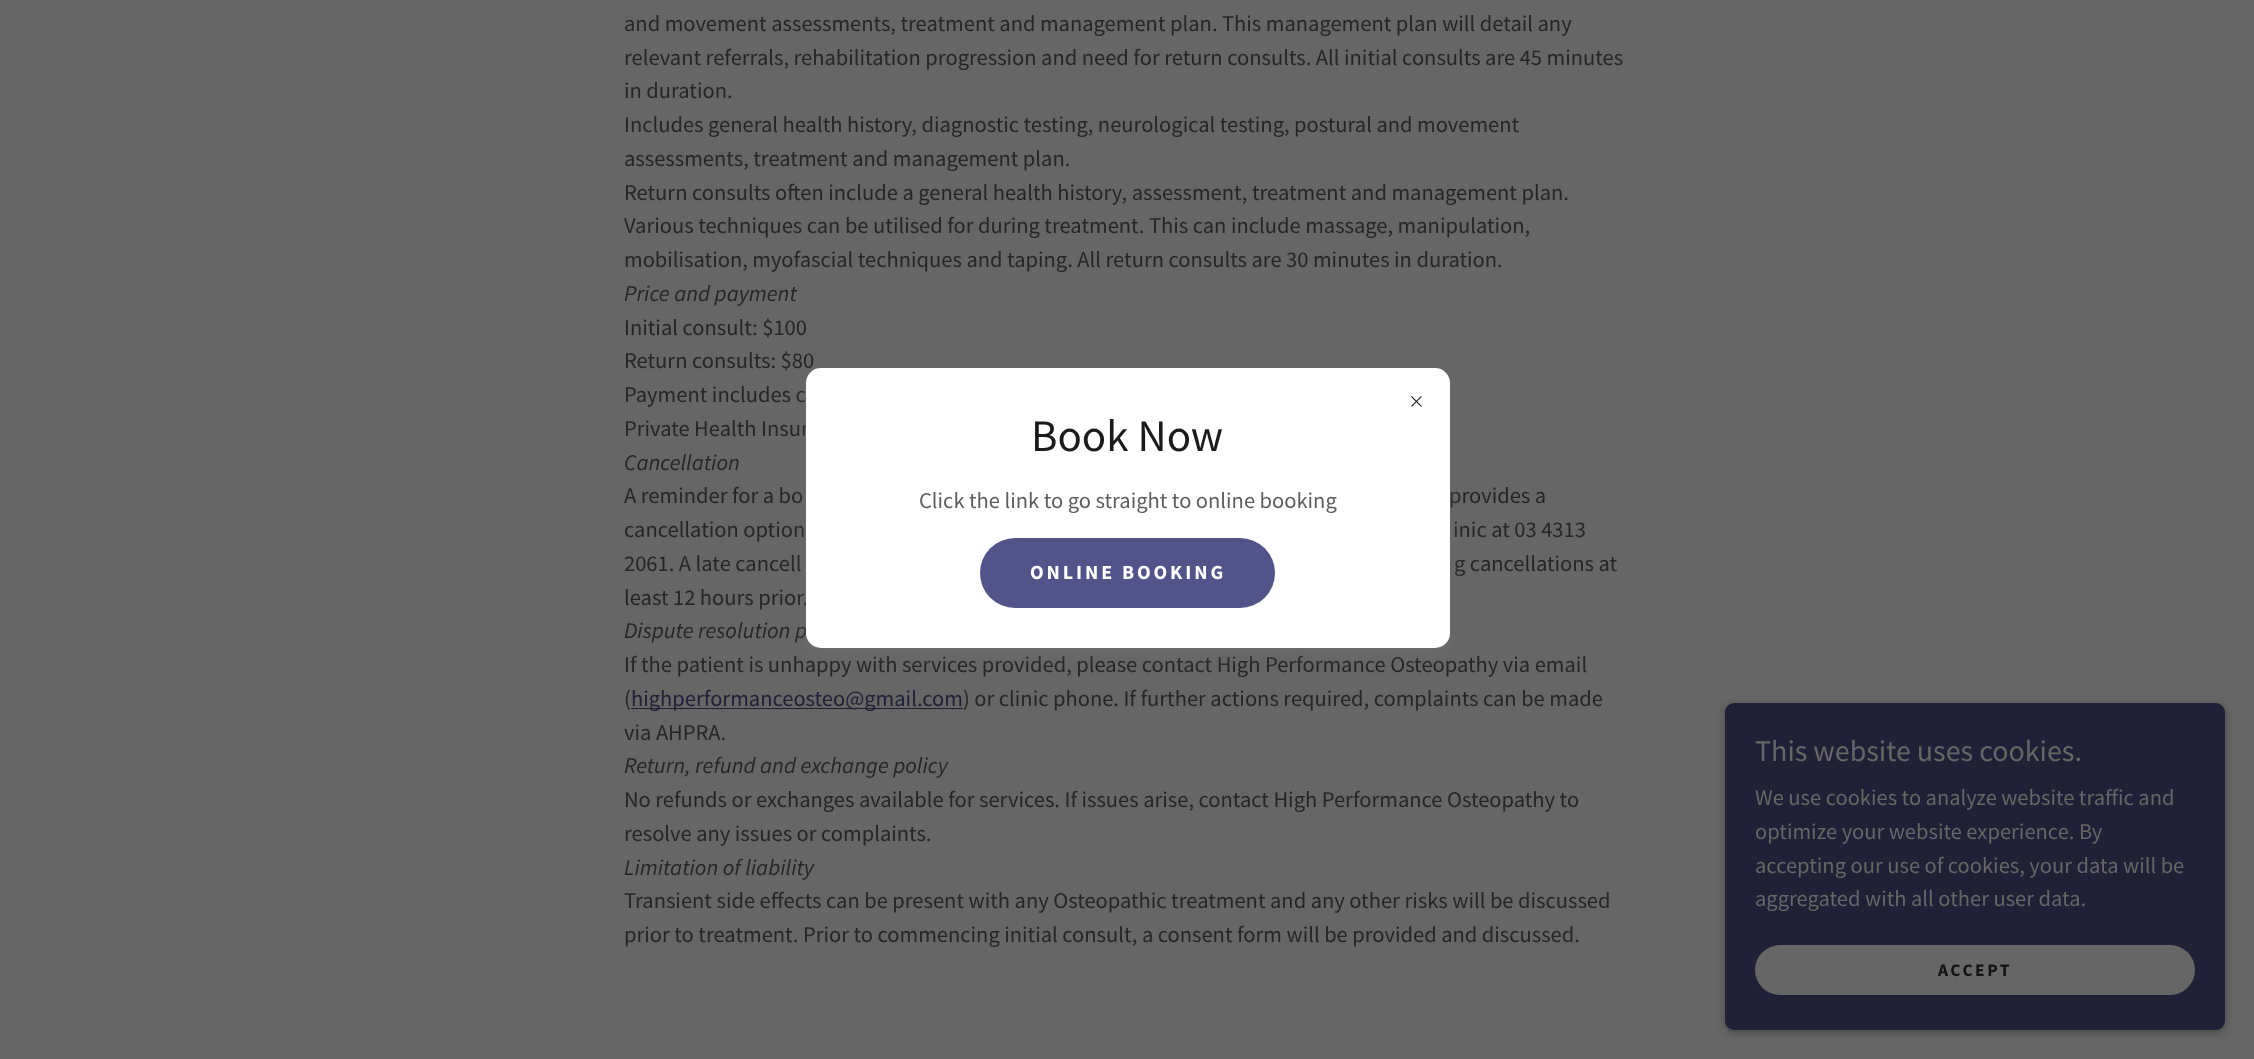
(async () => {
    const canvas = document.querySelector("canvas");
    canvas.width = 2254;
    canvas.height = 1059;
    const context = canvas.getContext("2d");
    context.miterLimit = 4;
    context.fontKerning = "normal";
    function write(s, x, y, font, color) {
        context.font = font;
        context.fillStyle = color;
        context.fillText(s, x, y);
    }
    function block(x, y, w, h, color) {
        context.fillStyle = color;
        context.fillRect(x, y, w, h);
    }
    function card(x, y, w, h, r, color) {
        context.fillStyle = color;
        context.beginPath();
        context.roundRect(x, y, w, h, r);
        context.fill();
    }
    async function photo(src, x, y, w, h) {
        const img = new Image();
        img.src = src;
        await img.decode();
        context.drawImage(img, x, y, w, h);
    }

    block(0, 0, 2254, 1059, "rgb(102, 102, 102)");
    write("and movement assessments, treatment and management plan. This management plan will detail any", 624, 31, "22.5px Source Sans Pro", "rgb(38, 38, 38)");
    write("relevant referrals, rehabilitation progression and need for return consults. All initial consults are 45 minutes", 624, 65, "22.5px Source Sans Pro", "rgb(38, 38, 38)");
    write("in duration.", 624, 98, "22.5px Source Sans Pro", "rgb(38, 38, 38)");
    write("Includes general health history, diagnostic testing, neurological testing, postural and movement", 624, 132, "22.5px Source Sans Pro", "rgb(38, 38, 38)");
    write("assessments, treatment and management plan.", 624, 166, "22.5px Source Sans Pro", "rgb(38, 38, 38)");
    write("Return consults often include a general health history, assessment, treatment and management plan.", 624, 200, "22.5px Source Sans Pro", "rgb(38, 38, 38)");
    write("Various techniques can be utilised for during treatment. This can include massage, manipulation,", 624, 233, "22.5px Source Sans Pro", "rgb(38, 38, 38)");
    write("mobilisation, myofascial techniques and taping. All return consults are 30 minutes in duration.", 624, 267, "22.5px Source Sans Pro", "rgb(38, 38, 38)");
    write("Price and payment", 624, 301, "italic 22.5px Source Sans Pro", "rgb(38, 38, 38)");
    write("Initial consult: $100", 624, 335, "22.5px Source Sans Pro", "rgb(38, 38, 38)");
    write("Return consults: $80", 624, 368, "22.5px Source Sans Pro", "rgb(38, 38, 38)");
    write("Payment includes c", 624, 402, "22.5px Source Sans Pro", "rgb(38, 38, 38)");
    write("Private Health Insur", 624, 436, "22.5px Source Sans Pro", "rgb(38, 38, 38)");
    write("Cancellation", 624, 470, "italic 22.5px Source Sans Pro", "rgb(38, 38, 38)");
    write("A reminder for a bo", 624, 503, "22.5px Source Sans Pro", "rgb(38, 38, 38)");
    write("provides a", 1449, 503, "22.5px Source Sans Pro", "rgb(38, 38, 38)");
    write("cancellation option", 624, 537, "22.5px Source Sans Pro", "rgb(38, 38, 38)");
    write("inic at 03 4313", 1453, 537, "22.5px Source Sans Pro", "rgb(38, 38, 38)");
    write("2061. A late cancell", 624, 571, "22.5px Source Sans Pro", "rgb(38, 38, 38)");
    write("g cancellations at", 1454, 571, "22.5px Source Sans Pro", "rgb(38, 38, 38)");
    write("least 12 hours prior.", 624, 605, "22.5px Source Sans Pro", "rgb(38, 38, 38)");
    write("Dispute resolution p", 624, 638, "italic 22.5px Source Sans Pro", "rgb(38, 38, 38)");
    write("If the patient is unhappy with services provided, please contact High Performance Osteopathy via email", 624, 672, "22.5px Source Sans Pro", "rgb(38, 38, 38)");
    write("(", 624, 706, "22.5px Source Sans Pro", "rgb(38, 38, 38)");
    block(631, 708, 332, 1, "rgb(32, 33, 55)");
    write("highperformanceosteo@gmail.com", 631, 706, "22.5px Source Sans Pro", "rgb(32, 33, 55)");
    write(") or clinic phone. If further actions required, complaints can be made", 963, 706, "22.5px Source Sans Pro", "rgb(38, 38, 38)");
    write("via AHPRA.", 624, 740, "22.5px Source Sans Pro", "rgb(38, 38, 38)");
    write("Return, refund and exchange policy", 624, 773, "italic 22.5px Source Sans Pro", "rgb(38, 38, 38)");
    write("No refunds or exchanges available for services. If issues arise, contact High Performance Osteopathy to", 624, 807, "22.5px Source Sans Pro", "rgb(38, 38, 38)");
    write("resolve any issues or complaints.", 624, 841, "22.5px Source Sans Pro", "rgb(38, 38, 38)");
    write("Limitation of liability", 624, 875, "italic 22.5px Source Sans Pro", "rgb(38, 38, 38)");
    write("Transient side effects can be present with any Osteopathic treatment and any other risks will be discussed", 624, 908, "22.5px Source Sans Pro", "rgb(38, 38, 38)");
    write("prior to treatment. Prior to commencing initial consult, a consent form will be provided and discussed.", 624, 942, "22.5px Source Sans Pro", "rgb(38, 38, 38)");
    context.fillStyle = "rgba(117, 117, 117, 0.4)";
    context.filter = "blur(7.5px)";
    context.beginPath();
    context.roundRect(806, 373, 644, 280, 15);
    context.fill();
    context.filter = "none";
    card(806, 368, 644, 280, 15, "rgb(255, 255, 255)");
    await photo("media/1.png", 1411, 396, 11, 11);
    write("Book Now", 1031, 451, "45px Source Sans Pro", "rgb(27, 27, 27)");
    write("Click the link to go straight to online booking", 919, 508, "22.5px Source Sans Pro", "rgb(94, 94, 94)");
    card(980, 538, 295, 70, 35, "rgb(81, 83, 137)");
    context.letterSpacing = "2.9px";
    write("ONLINE BOOKING", 1030, 579, "bold 20px Source Sans Pro", "rgb(255, 255, 255)");
    context.fillStyle = "rgba(0, 0, 0, 0.3)";
    context.filter = "blur(4px)";
    context.beginPath();
    context.roundRect(1725, 705, 500, 328, 9);
    context.fill();
    context.filter = "none";
    card(1725, 703, 500, 327, 9, "rgb(32, 33, 55)");
    context.letterSpacing = "0px";
    write("This website uses cookies.", 1755, 761, "30px Source Sans Pro", "rgb(102, 102, 102)");
    write("We use cookies to analyze website traffic and", 1755, 805, "22.5px Source Sans Pro", "rgb(102, 102, 102)");
    write("optimize your website experience. By", 1755, 839, "22.5px Source Sans Pro", "rgb(102, 102, 102)");
    write("accepting our use of cookies, your data will be", 1755, 873, "22.5px Source Sans Pro", "rgb(102, 102, 102)");
    write("aggregated with all other user data.", 1755, 906, "22.5px Source Sans Pro", "rgb(102, 102, 102)");
    card(1755, 945, 440, 50, 25, "rgb(102, 102, 102)");
    context.letterSpacing = "2.5px";
    write("ACCEPT", 1938, 976, "bold 17.5px Source Sans Pro", "rgb(19, 19, 19)");
})();
